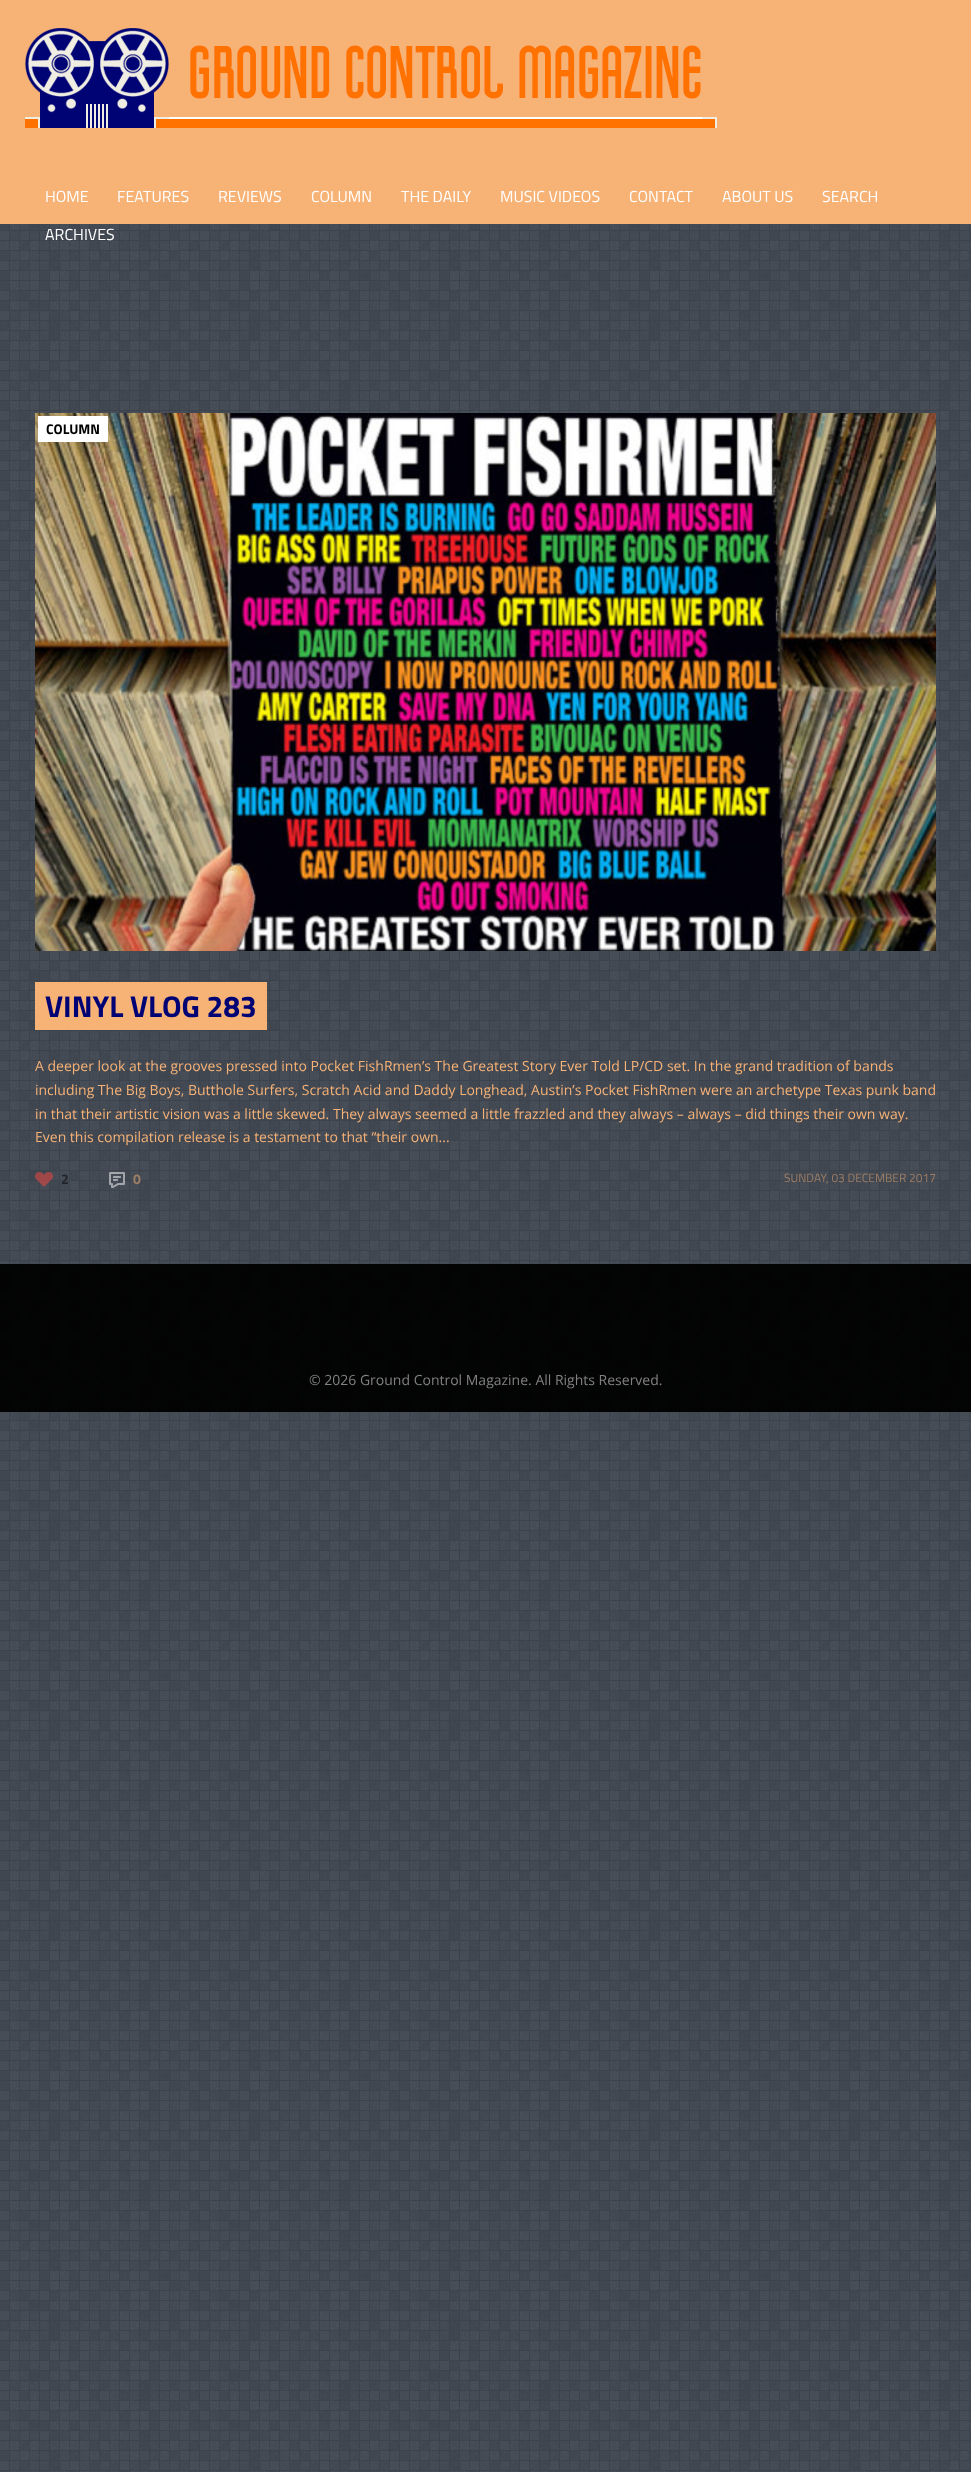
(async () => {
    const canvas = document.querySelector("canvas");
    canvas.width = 971;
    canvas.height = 2472;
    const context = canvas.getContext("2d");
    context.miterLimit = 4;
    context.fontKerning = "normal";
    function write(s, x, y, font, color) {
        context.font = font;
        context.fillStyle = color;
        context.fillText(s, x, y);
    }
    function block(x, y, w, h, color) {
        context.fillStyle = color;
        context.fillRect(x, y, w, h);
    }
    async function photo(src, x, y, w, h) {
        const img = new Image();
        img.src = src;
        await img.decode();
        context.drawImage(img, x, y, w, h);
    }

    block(0, 0, 971, 2472, "rgb(255, 255, 255)");
    await photo("media/1.png", 0, 224, 971, 2248);
    block(0, 0, 971, 224, "rgb(247, 178, 118)");
    await photo("media/2.png", 25, 28, 692, 100);
    write("HOME", 45, 202, "16px Titillium Web", "rgb(255, 255, 255)");
    write("FEATURES", 117, 202, "16px Titillium Web", "rgb(255, 255, 255)");
    write("REVIEWS", 218, 202, "16px Titillium Web", "rgb(255, 255, 255)");
    write("COLUMN", 311, 202, "16px Titillium Web", "rgb(255, 255, 255)");
    write("THE DAILY", 401, 202, "16px Titillium Web", "rgb(255, 255, 255)");
    write("MUSIC VIDEOS", 500, 202, "16px Titillium Web", "rgb(255, 255, 255)");
    write("CONTACT", 629, 202, "16px Titillium Web", "rgb(255, 255, 255)");
    write("ABOUT US", 722, 202, "16px Titillium Web", "rgb(255, 255, 255)");
    write("SEARCH", 822, 202, "16px Titillium Web", "rgb(255, 255, 255)");
    write("ARCHIVES", 45, 240, "16px Titillium Web", "rgb(255, 255, 255)");
    await photo("media/3.png", 35, 413, 901, 538);
    block(38, 416, 70, 26, "rgb(255, 255, 255)");
    write("COLUMN", 46, 434, "bold 14px Titillium Web", "rgb(0, 0, 0)");
    block(35, 982, 232, 48, "rgb(247, 178, 118)");
    write("VINYL VLOG 283", 45, 1017, "bold 30px Titillium Web", "rgb(0, 3, 116)");
    write("A deeper look at the grooves pressed into Pocket FishRmen’s The Greatest Story Ever Told LP/CD set. In the grand tradition of bands", 35, 1071, "14px Open Sans", "rgb(247, 178, 118)");
    write("including The Big Boys, Butthole Surfers, Scratch Acid and Daddy Longhead, Austin’s Pocket FishRmen were an archetype Texas punk band", 35, 1095, "14px Open Sans", "rgb(247, 178, 118)");
    write("in that their artistic vision was a little skewed. They always seemed a little frazzled and they always – always – did things their own way.", 35, 1119, "14px Open Sans", "rgb(247, 178, 118)");
    write("Even this compilation release is a testament to that “their own...", 35, 1142, "14px Open Sans", "rgb(247, 178, 118)");
    await photo("media/4.png", 35, 1172, 18, 15);
    write("2", 61, 1184, "bold 14px Titillium Web", "rgb(34, 38, 43)");
    await photo("media/5.png", 109, 1172, 16, 16);
    write("0", 133, 1184, "bold 14px Titillium Web", "rgb(158, 126, 101)");
    write("SUNDAY, 03 DECEMBER 2017", 784, 1182, "12px Titillium Web", "rgb(158, 126, 101)");
    block(0, 1264, 971, 84, "rgba(0, 0, 0, 0.95)");
    block(0, 1348, 971, 64, "rgba(0, 0, 0, 0.95)");
    write("© 2026 Ground Control Magazine. All Rights Reserved.", 309, 1385, "14px Open Sans", "rgb(129, 129, 130)");
})();
